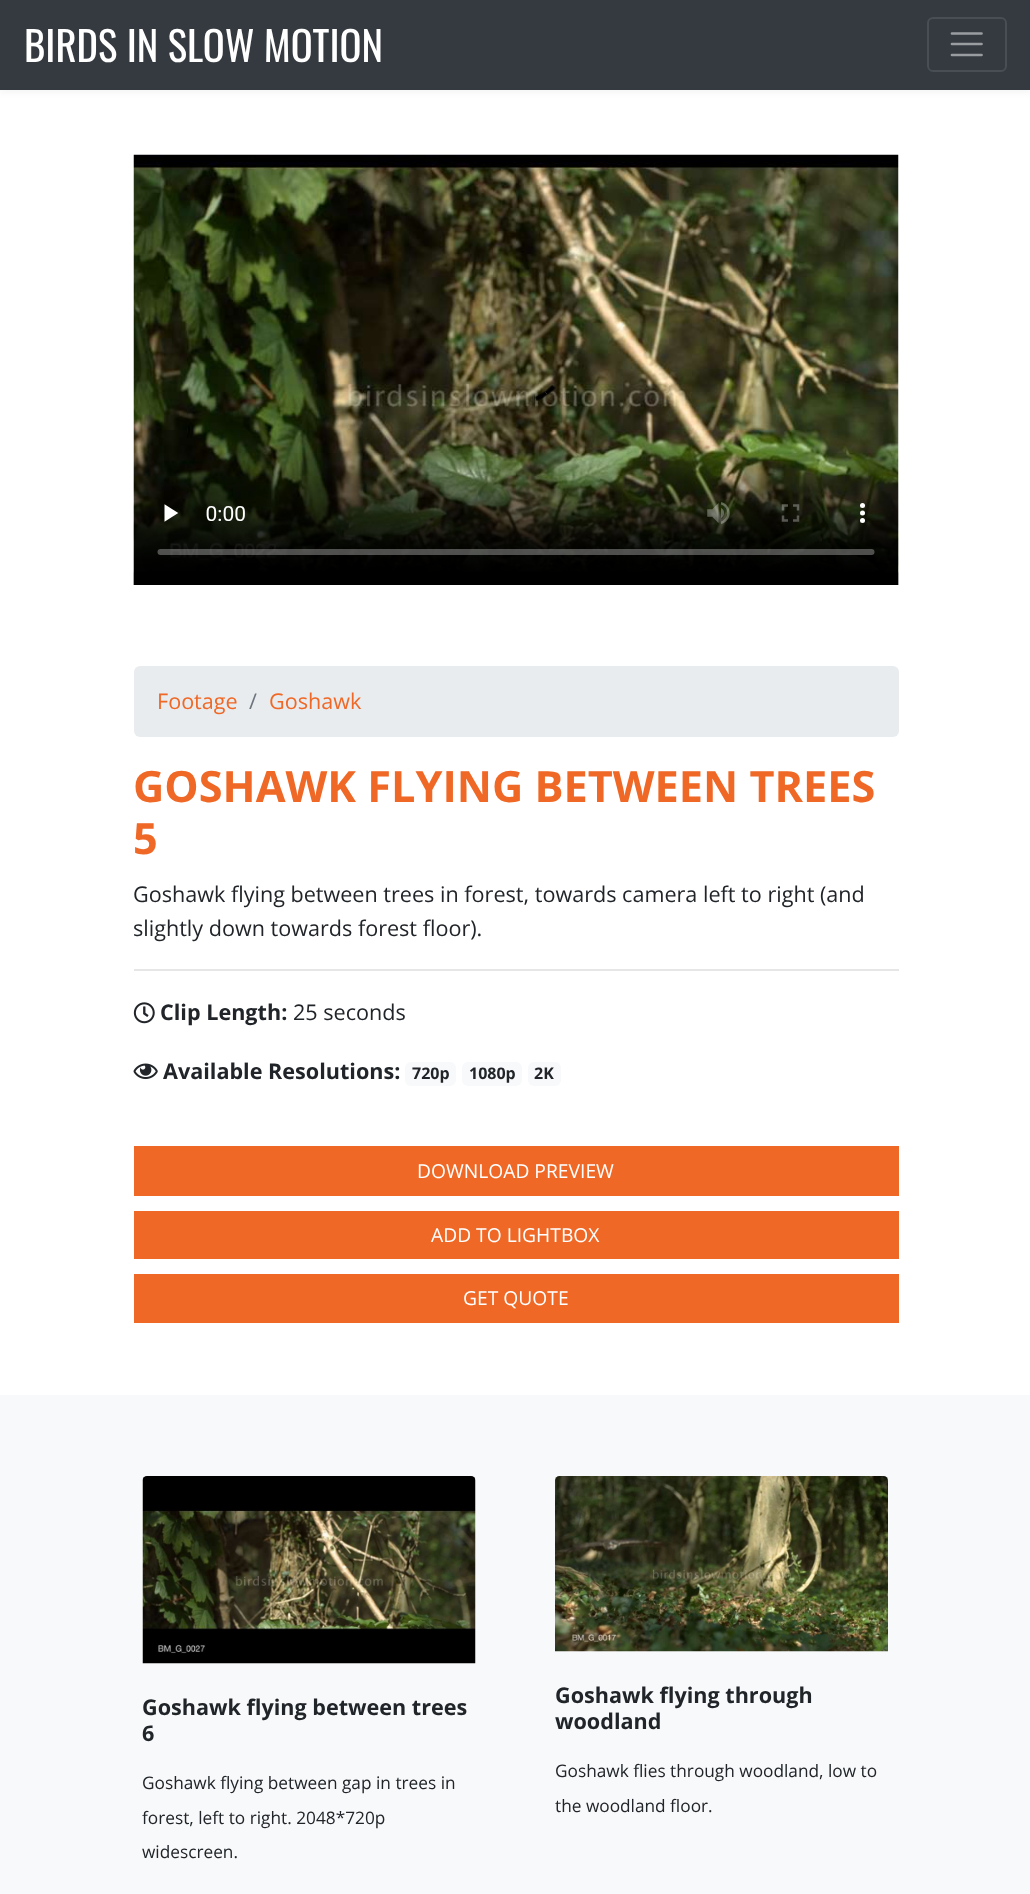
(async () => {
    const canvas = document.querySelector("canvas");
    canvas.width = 1030;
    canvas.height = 1894;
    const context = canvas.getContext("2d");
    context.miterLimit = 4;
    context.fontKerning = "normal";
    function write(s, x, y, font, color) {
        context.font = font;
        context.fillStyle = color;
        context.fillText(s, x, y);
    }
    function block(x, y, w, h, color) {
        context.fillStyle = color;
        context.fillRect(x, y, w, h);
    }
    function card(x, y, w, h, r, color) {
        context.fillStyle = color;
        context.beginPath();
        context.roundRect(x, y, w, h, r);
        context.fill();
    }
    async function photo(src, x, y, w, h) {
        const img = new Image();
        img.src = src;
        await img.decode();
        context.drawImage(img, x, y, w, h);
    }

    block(0, 0, 1030, 1894, "rgb(255, 255, 255)");
    context.fillStyle = "rgba(0, 0, 0, 0.04)";
    context.filter = "blur(3px)";
    context.beginPath();
    context.rect(0, 3, 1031, 90);
    context.fill();
    context.filter = "none";
    block(0, 0, 1030, 90, "rgb(52, 58, 64)");
    write("BIRDS IN SLOW MOTION", 24, 62, "40.75px Oswald", "rgb(255, 255, 255)");
    context.beginPath();
    context.roundRect(928, 18, 78, 53, 5);
    context.strokeStyle = "rgb(72, 78, 83)";
    context.lineWidth = 2;
    context.stroke();
    context.beginPath();
    context.moveTo(952, 33.5);
    context.lineTo(981.5, 33.5);
    context.moveTo(952, 44);
    context.lineTo(981.5, 44);
    context.moveTo(952, 55);
    context.lineTo(981.5, 55);
    context.strokeStyle = "rgb(154, 157, 160)";
    context.lineWidth = 2.7;
    context.lineCap = "round";
    context.stroke();
    await photo("media/1.png", 133, 154, 766, 431);
    card(134, 666, 765, 71, 6, "rgb(233, 236, 239)");
    write("Footage", 157, 709, "21.6px Open Sans", "rgb(239, 104, 38)");
    write("/", 249, 709, "21.6px Open Sans", "rgb(108, 117, 125)");
    write("Goshawk", 269, 709, "21.6px Open Sans", "rgb(239, 104, 38)");
    write("GOSHAWK FLYING BETWEEN TREES", 133, 802, "bold 43.25px Open Sans", "rgb(239, 104, 38)");
    write("5", 133, 854, "bold 43.25px Open Sans", "rgb(239, 104, 38)");
    write("Goshawk flying between trees in forest, towards camera left to right (and", 133, 902, "21.6px Open Sans", "rgb(33, 37, 41)");
    write("slightly down towards forest floor).", 133, 936, "21.6px Open Sans", "rgb(33, 37, 41)");
    block(134, 969, 765, 2, "rgb(230, 230, 230)");
    await photo("media/2.png", 133, 1002, 22, 22);
    write("Clip Length:", 160, 1020, "bold 21.6px Open Sans", "rgb(33, 37, 41)");
    write("25 seconds", 293, 1020, "21.6px Open Sans", "rgb(33, 37, 41)");
    await photo("media/3.png", 133, 1063, 25, 17);
    write("Available Resolutions:", 163, 1079, "bold 21.6px Open Sans", "rgb(33, 37, 41)");
    card(405, 1062, 51, 24, 6, "rgb(248, 249, 250)");
    write("720p", 412, 1079, "bold 16px Open Sans", "rgb(33, 37, 41)");
    card(462, 1062, 60, 24, 6, "rgb(248, 249, 250)");
    write("1080p", 469, 1079, "bold 16px Open Sans", "rgb(33, 37, 41)");
    card(528, 1062, 33, 24, 6, "rgb(248, 249, 250)");
    write("2K", 534, 1079, "bold 16px Open Sans", "rgb(33, 37, 41)");
    block(134, 1146, 765, 50, "rgb(239, 104, 38)");
    write("DOWNLOAD PREVIEW", 417, 1178, "19.25px Open Sans", "rgb(255, 255, 255)");
    block(134, 1211, 765, 48, "rgb(239, 104, 38)");
    write("ADD TO LIGHTBOX", 431, 1242, "19.25px Open Sans", "rgb(255, 255, 255)");
    block(134, 1274, 765, 49, "rgb(239, 104, 38)");
    write("GET QUOTE", 463, 1305, "19.25px Open Sans", "rgb(255, 255, 255)");
    block(0, 1395, 1030, 499, "rgb(248, 249, 250)");
    await photo("media/4.png", 142, 1476, 334, 188);
    write("Goshawk flying between trees", 142, 1715, "bold 21.6px Open Sans", "rgb(33, 37, 41)");
    write("6", 142, 1741, "bold 21.6px Open Sans", "rgb(33, 37, 41)");
    write("Goshawk flying between gap in trees in", 142, 1789, "17.25px Open Sans", "rgb(33, 37, 41)");
    write("forest, left to right. 2048*720p", 142, 1824, "17.25px Open Sans", "rgb(33, 37, 41)");
    write("widescreen.", 142, 1858, "17.25px Open Sans", "rgb(33, 37, 41)");
    await photo("media/5.png", 555, 1476, 333, 176);
    write("Goshawk flying through", 555, 1703, "bold 21.6px Open Sans", "rgb(33, 37, 41)");
    write("woodland", 555, 1729, "bold 21.6px Open Sans", "rgb(33, 37, 41)");
    write("Goshawk flies through woodland, low to", 555, 1777, "17.25px Open Sans", "rgb(33, 37, 41)");
    write("the woodland floor.", 555, 1812, "17.25px Open Sans", "rgb(33, 37, 41)");
})();
